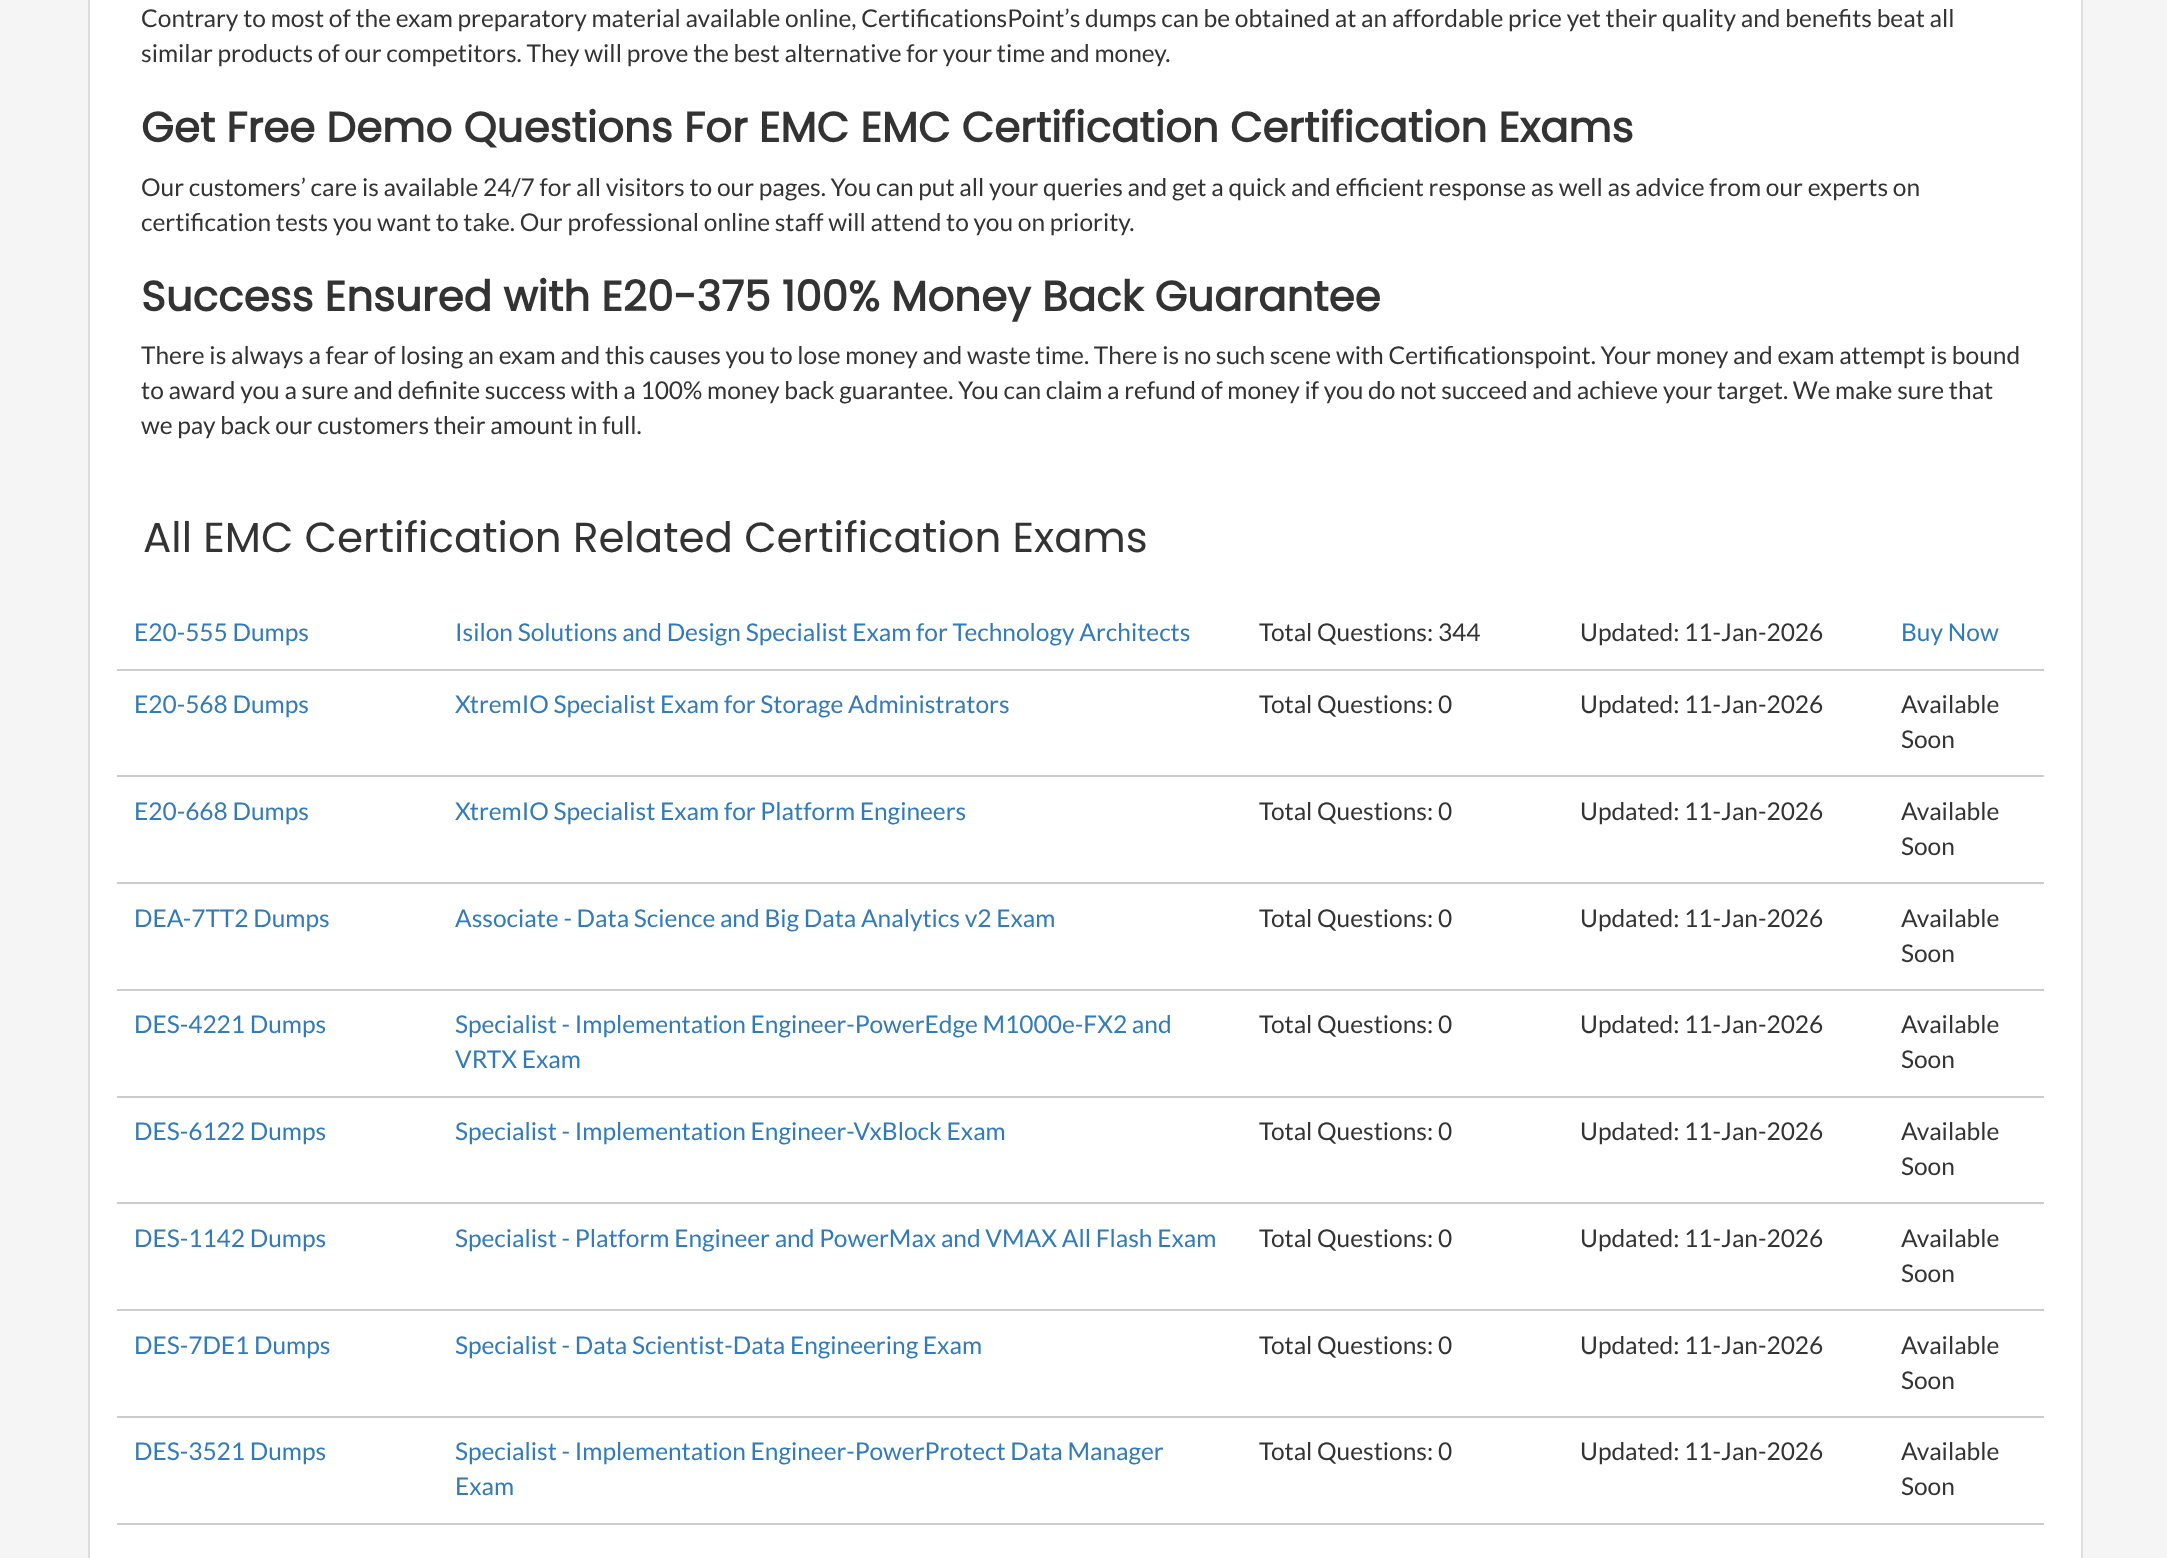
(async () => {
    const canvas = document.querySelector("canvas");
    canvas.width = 2167;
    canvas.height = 1558;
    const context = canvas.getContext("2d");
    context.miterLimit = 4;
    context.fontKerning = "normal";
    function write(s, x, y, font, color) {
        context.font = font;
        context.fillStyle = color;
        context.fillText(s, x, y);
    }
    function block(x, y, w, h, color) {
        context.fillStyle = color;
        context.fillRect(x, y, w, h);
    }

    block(0, 0, 2167, 1558, "rgb(245, 245, 245)");
    context.fillStyle = "rgb(255, 255, 255)";
    context.beginPath();
    context.rect(89, -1, 1993, 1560);
    context.fill();
    context.strokeStyle = "rgb(221, 221, 221)";
    context.lineWidth = 2;
    context.stroke();
    write("Contrary to most of the exam preparatory material available online, CertificationsPoint’s dumps can be obtained at an affordable price yet their quality and benefits beat all", 141, 27, "24.5px Lato", "rgb(51, 51, 51)");
    write("similar products of our competitors. They will prove the best alternative for your time and money.", 141, 62, "24.5px Lato", "rgb(51, 51, 51)");
    write("Get Free Demo Questions For EMC EMC Certification Certification Exams", 141, 142, "bold 42px Poppins", "rgb(51, 51, 51)");
    write("Our customers’ care is available 24/7 for all visitors to our pages. You can put all your queries and get a quick and efficient response as well as advice from our experts on", 141, 196, "24.5px Lato", "rgb(51, 51, 51)");
    write("certification tests you want to take. Our professional online staff will attend to you on priority.", 141, 231, "24.5px Lato", "rgb(51, 51, 51)");
    write("Success Ensured with E20-375 100% Money Back Guarantee", 141, 311, "bold 42px Poppins", "rgb(51, 51, 51)");
    write("There is always a fear of losing an exam and this causes you to lose money and waste time. There is no such scene with Certificationspoint. Your money and exam attempt is bound", 141, 364, "24.5px Lato", "rgb(51, 51, 51)");
    write("to award you a sure and definite success with a 100% money back guarantee. You can claim a refund of money if you do not succeed and achieve your target. We make sure that", 141, 399, "24.5px Lato", "rgb(51, 51, 51)");
    write("we pay back our customers their amount in full.", 141, 434, "24.5px Lato", "rgb(51, 51, 51)");
    write("All EMC Certification Related Certification Exams", 143, 552, "42px Poppins", "rgb(51, 51, 51)");
    block(117, 669, 1927, 2, "rgb(204, 204, 204)");
    write("E20-555 Dumps", 134, 641, "24.5px Lato", "rgb(51, 122, 183)");
    write("Isilon Solutions and Design Specialist Exam for Technology Architects", 455, 641, "24.5px Lato", "rgb(51, 122, 183)");
    write("Total Questions: 344", 1259, 641, "24.5px Lato", "rgb(51, 51, 51)");
    write("Updated: 11-Jan-2026", 1580, 641, "24.5px Lato", "rgb(51, 51, 51)");
    write("Buy Now", 1901, 641, "24.5px Lato", "rgb(51, 122, 183)");
    block(117, 775, 1927, 2, "rgb(204, 204, 204)");
    write("E20-568 Dumps", 134, 713, "24.5px Lato", "rgb(51, 122, 183)");
    write("XtremIO Specialist Exam for Storage Administrators", 455, 713, "24.5px Lato", "rgb(51, 122, 183)");
    write("Total Questions: 0", 1259, 713, "24.5px Lato", "rgb(51, 51, 51)");
    write("Updated: 11-Jan-2026", 1580, 713, "24.5px Lato", "rgb(51, 51, 51)");
    write("Available", 1901, 713, "24.5px Lato", "rgb(51, 51, 51)");
    write("Soon", 1901, 748, "24.5px Lato", "rgb(51, 51, 51)");
    block(117, 882, 1927, 2, "rgb(204, 204, 204)");
    write("E20-668 Dumps", 134, 820, "24.5px Lato", "rgb(51, 122, 183)");
    write("XtremIO Specialist Exam for Platform Engineers", 455, 820, "24.5px Lato", "rgb(51, 122, 183)");
    write("Total Questions: 0", 1259, 820, "24.5px Lato", "rgb(51, 51, 51)");
    write("Updated: 11-Jan-2026", 1580, 820, "24.5px Lato", "rgb(51, 51, 51)");
    write("Available", 1901, 820, "24.5px Lato", "rgb(51, 51, 51)");
    write("Soon", 1901, 855, "24.5px Lato", "rgb(51, 51, 51)");
    block(117, 989, 1927, 2, "rgb(204, 204, 204)");
    write("DEA-7TT2 Dumps", 134, 927, "24.5px Lato", "rgb(51, 122, 183)");
    write("Associate - Data Science and Big Data Analytics v2 Exam", 455, 927, "24.5px Lato", "rgb(51, 122, 183)");
    write("Total Questions: 0", 1259, 927, "24.5px Lato", "rgb(51, 51, 51)");
    write("Updated: 11-Jan-2026", 1580, 927, "24.5px Lato", "rgb(51, 51, 51)");
    write("Available", 1901, 927, "24.5px Lato", "rgb(51, 51, 51)");
    write("Soon", 1901, 962, "24.5px Lato", "rgb(51, 51, 51)");
    block(117, 1096, 1927, 2, "rgb(204, 204, 204)");
    write("DES-4221 Dumps", 134, 1033, "24.5px Lato", "rgb(51, 122, 183)");
    write("Specialist - Implementation Engineer-PowerEdge M1000e-FX2 and", 455, 1033, "24.5px Lato", "rgb(51, 122, 183)");
    write("VRTX Exam", 455, 1068, "24.5px Lato", "rgb(51, 122, 183)");
    write("Total Questions: 0", 1259, 1033, "24.5px Lato", "rgb(51, 51, 51)");
    write("Updated: 11-Jan-2026", 1580, 1033, "24.5px Lato", "rgb(51, 51, 51)");
    write("Available", 1901, 1033, "24.5px Lato", "rgb(51, 51, 51)");
    write("Soon", 1901, 1068, "24.5px Lato", "rgb(51, 51, 51)");
    block(117, 1202, 1927, 2, "rgb(204, 204, 204)");
    write("DES-6122 Dumps", 134, 1140, "24.5px Lato", "rgb(51, 122, 183)");
    write("Specialist - Implementation Engineer-VxBlock Exam", 455, 1140, "24.5px Lato", "rgb(51, 122, 183)");
    write("Total Questions: 0", 1259, 1140, "24.5px Lato", "rgb(51, 51, 51)");
    write("Updated: 11-Jan-2026", 1580, 1140, "24.5px Lato", "rgb(51, 51, 51)");
    write("Available", 1901, 1140, "24.5px Lato", "rgb(51, 51, 51)");
    write("Soon", 1901, 1175, "24.5px Lato", "rgb(51, 51, 51)");
    block(117, 1309, 1927, 2, "rgb(204, 204, 204)");
    write("DES-1142 Dumps", 134, 1247, "24.5px Lato", "rgb(51, 122, 183)");
    write("Specialist - Platform Engineer and PowerMax and VMAX All Flash Exam", 455, 1247, "24.5px Lato", "rgb(51, 122, 183)");
    write("Total Questions: 0", 1259, 1247, "24.5px Lato", "rgb(51, 51, 51)");
    write("Updated: 11-Jan-2026", 1580, 1247, "24.5px Lato", "rgb(51, 51, 51)");
    write("Available", 1901, 1247, "24.5px Lato", "rgb(51, 51, 51)");
    write("Soon", 1901, 1282, "24.5px Lato", "rgb(51, 51, 51)");
    block(117, 1416, 1927, 2, "rgb(204, 204, 204)");
    write("DES-7DE1 Dumps", 134, 1354, "24.5px Lato", "rgb(51, 122, 183)");
    write("Specialist - Data Scientist-Data Engineering Exam", 455, 1354, "24.5px Lato", "rgb(51, 122, 183)");
    write("Total Questions: 0", 1259, 1354, "24.5px Lato", "rgb(51, 51, 51)");
    write("Updated: 11-Jan-2026", 1580, 1354, "24.5px Lato", "rgb(51, 51, 51)");
    write("Available", 1901, 1354, "24.5px Lato", "rgb(51, 51, 51)");
    write("Soon", 1901, 1389, "24.5px Lato", "rgb(51, 51, 51)");
    block(117, 1523, 1927, 2, "rgb(204, 204, 204)");
    write("DES-3521 Dumps", 134, 1460, "24.5px Lato", "rgb(51, 122, 183)");
    write("Specialist - Implementation Engineer-PowerProtect Data Manager", 455, 1460, "24.5px Lato", "rgb(51, 122, 183)");
    write("Exam", 455, 1495, "24.5px Lato", "rgb(51, 122, 183)");
    write("Total Questions: 0", 1259, 1460, "24.5px Lato", "rgb(51, 51, 51)");
    write("Updated: 11-Jan-2026", 1580, 1460, "24.5px Lato", "rgb(51, 51, 51)");
    write("Available", 1901, 1460, "24.5px Lato", "rgb(51, 51, 51)");
    write("Soon", 1901, 1495, "24.5px Lato", "rgb(51, 51, 51)");
})();
